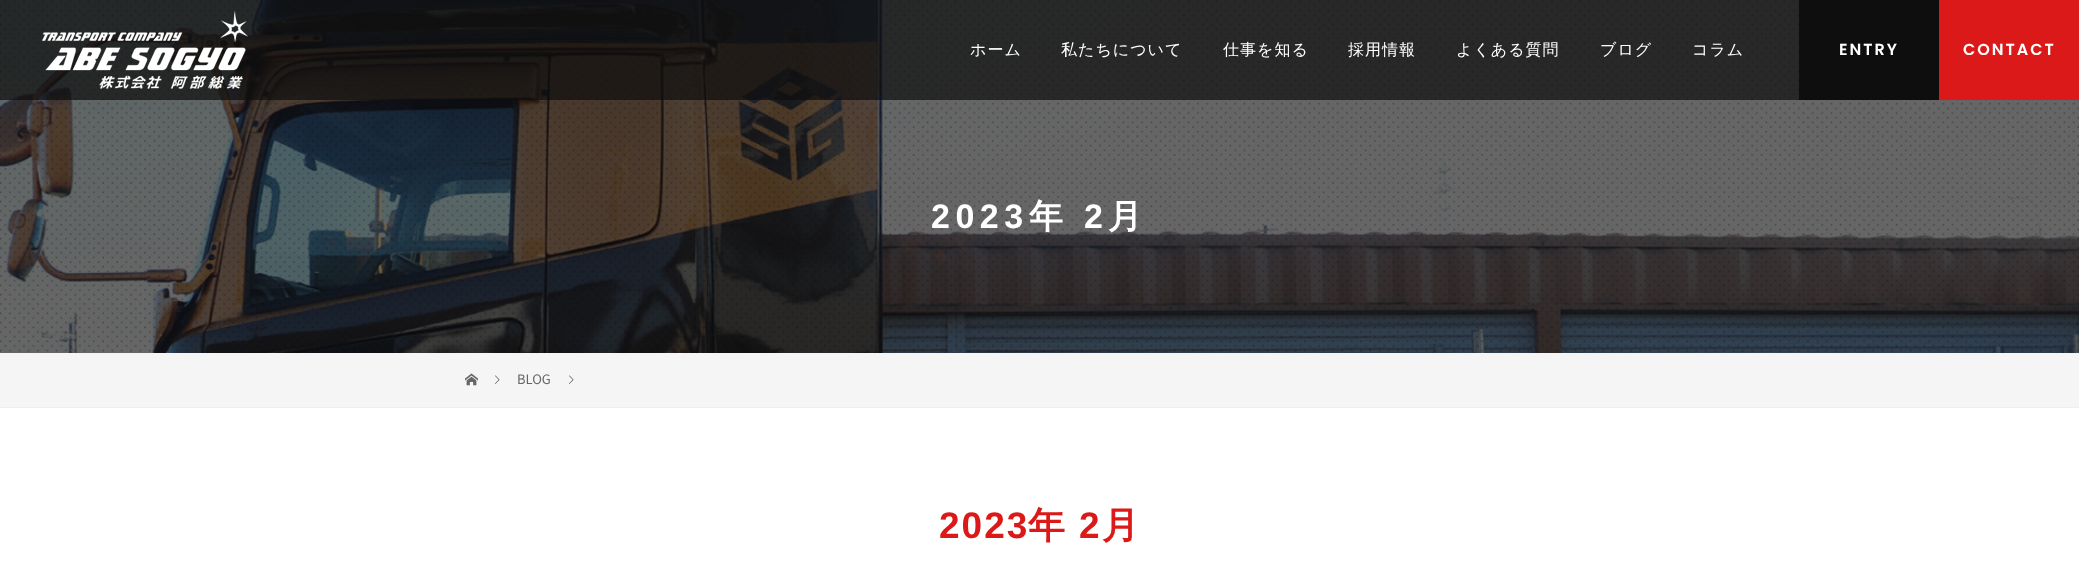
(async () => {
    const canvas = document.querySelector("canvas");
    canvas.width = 2079;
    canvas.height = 575;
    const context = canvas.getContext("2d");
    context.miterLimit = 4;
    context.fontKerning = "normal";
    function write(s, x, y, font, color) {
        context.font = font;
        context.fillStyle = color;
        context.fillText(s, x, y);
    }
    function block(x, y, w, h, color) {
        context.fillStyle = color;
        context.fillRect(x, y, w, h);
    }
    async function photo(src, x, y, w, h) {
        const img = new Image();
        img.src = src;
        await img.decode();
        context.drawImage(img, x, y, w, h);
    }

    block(0, 0, 2079, 575, "rgb(255, 255, 255)");
    await photo("media/2.png", 0, 0, 2079, 353);
    block(0, 0, 1799, 100, "rgba(14, 14, 14, 0.7)");
    await photo("media/1.png", 42, 11, 206, 78);
    context.letterSpacing = "1px";
    write("ホーム", 970, 55, "500 16px WenQuanYi Zen Hei", "rgb(255, 255, 255)");
    write("私たちについて", 1061, 55, "500 16px WenQuanYi Zen Hei", "rgb(255, 255, 255)");
    write("仕事を知る", 1223, 55, "500 16px WenQuanYi Zen Hei", "rgb(255, 255, 255)");
    write("採用情報", 1348, 55, "500 16px WenQuanYi Zen Hei", "rgb(255, 255, 255)");
    write("よくある質問", 1456, 55, "500 16px WenQuanYi Zen Hei", "rgb(255, 255, 255)");
    write("ブログ", 1600, 55, "500 16px WenQuanYi Zen Hei", "rgb(255, 255, 255)");
    write("コラム", 1692, 55, "500 16px WenQuanYi Zen Hei", "rgb(255, 255, 255)");
    block(1799, 0, 140, 100, "rgb(14, 14, 14)");
    context.letterSpacing = "2px";
    write("ENTRY", 1839, 55, "600 16px Poppins", "rgb(255, 255, 255)");
    block(1939, 0, 140, 100, "rgb(220, 25, 25)");
    write("CONTACT", 1963, 55, "600 16px Poppins", "rgb(255, 255, 255)");
    context.letterSpacing = "5.5px";
    write("2023", 931, 228, "bold 34px Liberation Sans", "rgb(255, 255, 255)");
    write("年", 1029, 228, "bold 34px WenQuanYi Zen Hei", "rgb(255, 255, 255)");
    write("2", 1084, 228, "bold 34px Liberation Sans", "rgb(255, 255, 255)");
    write("月", 1108, 228, "bold 34px WenQuanYi Zen Hei", "rgb(255, 255, 255)");
    block(0, 353, 2079, 54, "rgb(245, 245, 245)");
    block(0, 407, 2079, 1, "rgb(238, 238, 238)");
    await photo("media/3.png", 465, 373, 13, 13);
    await photo("media/4.png", 495, 375, 5, 9);
    context.letterSpacing = "0px";
    write("BLOG", 517, 384, "100 13px Noto Sans JP", "rgb(102, 102, 102)");
    await photo("media/4.png", 569, 375, 5, 9);
    context.letterSpacing = "2px";
    write("2023", 939, 538, "bold 37px Liberation Sans", "rgb(220, 25, 25)");
    write("年", 1028, 538, "bold 37px WenQuanYi Zen Hei", "rgb(220, 25, 25)");
    write("2", 1079, 538, "bold 37px Liberation Sans", "rgb(220, 25, 25)");
    write("月", 1102, 538, "bold 37px WenQuanYi Zen Hei", "rgb(220, 25, 25)");
})();
